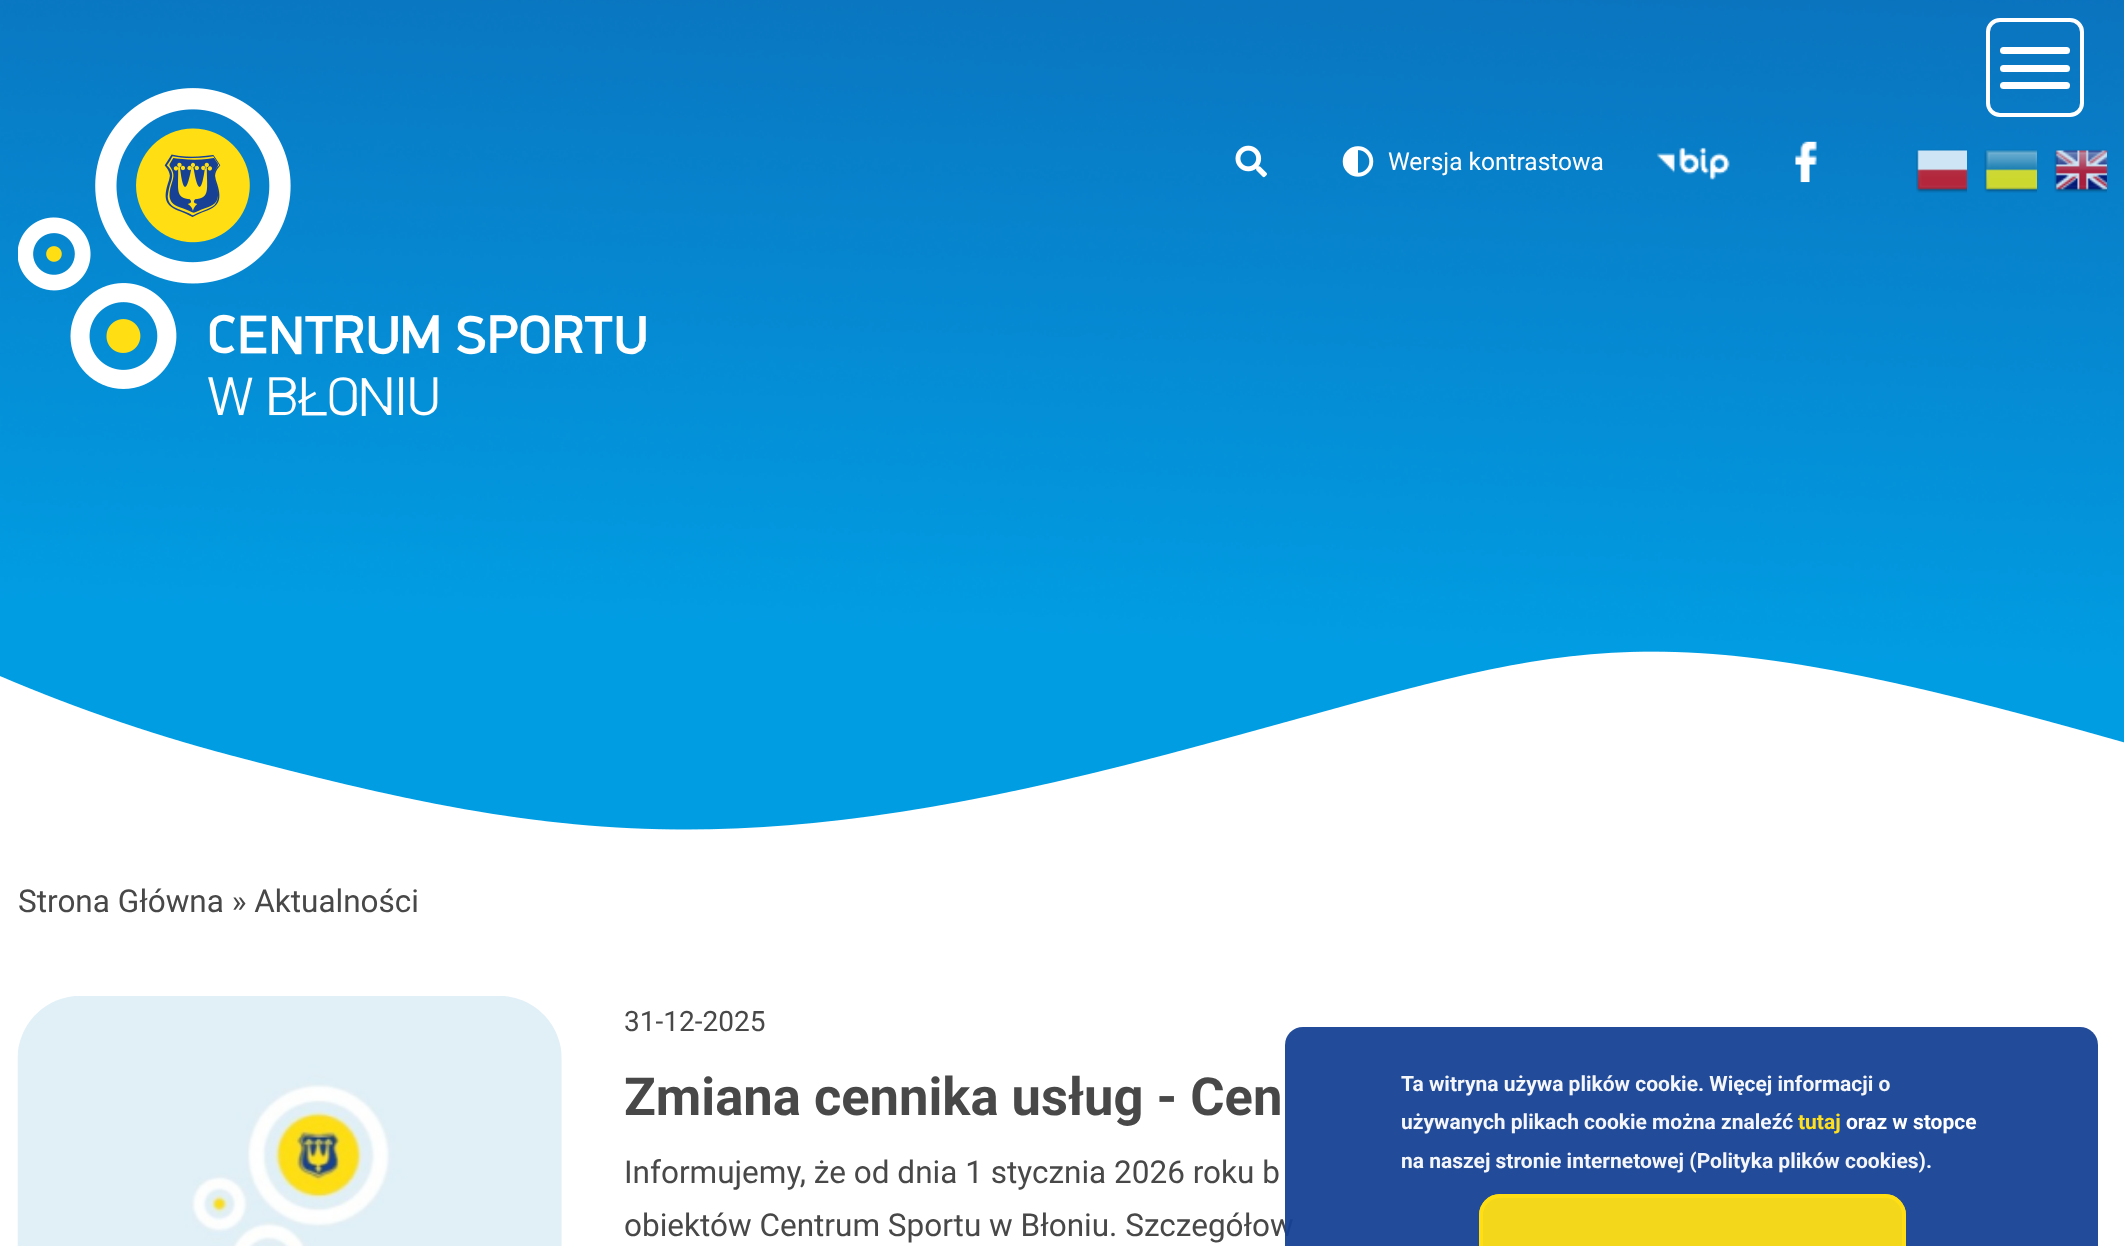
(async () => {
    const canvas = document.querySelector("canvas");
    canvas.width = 2124;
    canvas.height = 1246;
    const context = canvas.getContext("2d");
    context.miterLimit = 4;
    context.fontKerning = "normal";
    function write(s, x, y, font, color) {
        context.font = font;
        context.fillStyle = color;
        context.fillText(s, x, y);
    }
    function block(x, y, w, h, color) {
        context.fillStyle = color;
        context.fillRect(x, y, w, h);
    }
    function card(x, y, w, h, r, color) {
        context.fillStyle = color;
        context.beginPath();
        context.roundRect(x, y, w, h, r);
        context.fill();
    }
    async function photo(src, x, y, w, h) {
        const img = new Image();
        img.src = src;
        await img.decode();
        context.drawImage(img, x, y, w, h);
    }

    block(0, 0, 2124, 1246, "rgb(255, 255, 255)");
    await photo("media/1.png", 0, 0, 2124, 830);
    await photo("media/2.png", 0, 651, 2124, 221);
    await photo("media/3.png", 18, 88, 628, 328);
    context.beginPath();
    context.roundRect(1988, 20, 94, 95, 12);
    context.strokeStyle = "rgb(255, 255, 255)";
    context.lineWidth = 4;
    context.stroke();
    card(2000, 47, 70, 7, 3.5, "rgb(255, 255, 255)");
    card(2000, 65, 70, 7, 3.5, "rgb(255, 255, 255)");
    card(2000, 82, 70, 7, 3.5, "rgb(255, 255, 255)");
    await photo("media/4.png", 1235, 145, 32, 33);
    await photo("media/5.png", 1342, 146, 32, 31);
    write("Wersja kontrastowa", 1388, 170, "24.5px Roboto", "rgb(255, 255, 255)");
    await photo("media/6.png", 1656, 147, 74, 33);
    await photo("media/7.png", 1795, 141, 22, 42);
    await photo("media/8.png", 1916, 149, 51, 44);
    await photo("media/9.png", 1984, 149, 53, 44);
    await photo("media/10.png", 2054, 149, 53, 44);
    write("Strona Główna » Aktualności", 18, 912, "31.5px Roboto", "rgb(72, 72, 72)");
    await photo("media/11.png", 17, 996, 545, 250);
    write("31-12-2025", 624, 1031, "28px Roboto", "rgb(72, 72, 72)");
    write("Zmiana cennika usług - Cen", 624, 1115, "bold 52.5px Roboto", "rgb(72, 72, 72)");
    write("Informujemy, że od dnia 1 stycznia 2026 roku b", 624, 1183, "31.5px Roboto", "rgb(72, 72, 72)");
    write("obiektów Centrum Sportu w Błoniu. Szczegółow", 624, 1236, "31.5px Roboto", "rgb(72, 72, 72)");
    card(1285, 1027, 813, 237, 18, "rgba(22, 65, 148, 0.95)");
    write("Ta witryna używa plików cookie. Więcej informacji o", 1401, 1091, "bold 21px Roboto", "rgb(244, 246, 250)");
    write("używanych plikach cookie można znaleźć", 1401, 1129, "bold 21px Roboto", "rgb(244, 246, 250)");
    write("tutaj", 1798, 1129, "bold 21px Roboto", "rgb(255, 224, 32)");
    write("oraz w stopce", 1846, 1129, "bold 21px Roboto", "rgb(255, 255, 255)");
    write("na naszej stronie internetowej (Polityka plików cookies).", 1401, 1168, "bold 21px Roboto", "rgb(244, 246, 250)");
    card(1479, 1194, 427, 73, 21, "rgba(255, 222, 20, 0.95)");
    context.beginPath();
    context.roundRect(1481, 1196, 423, 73, 19);
    context.strokeStyle = "rgba(255, 222, 20, 0.95)";
    context.stroke();
})();
